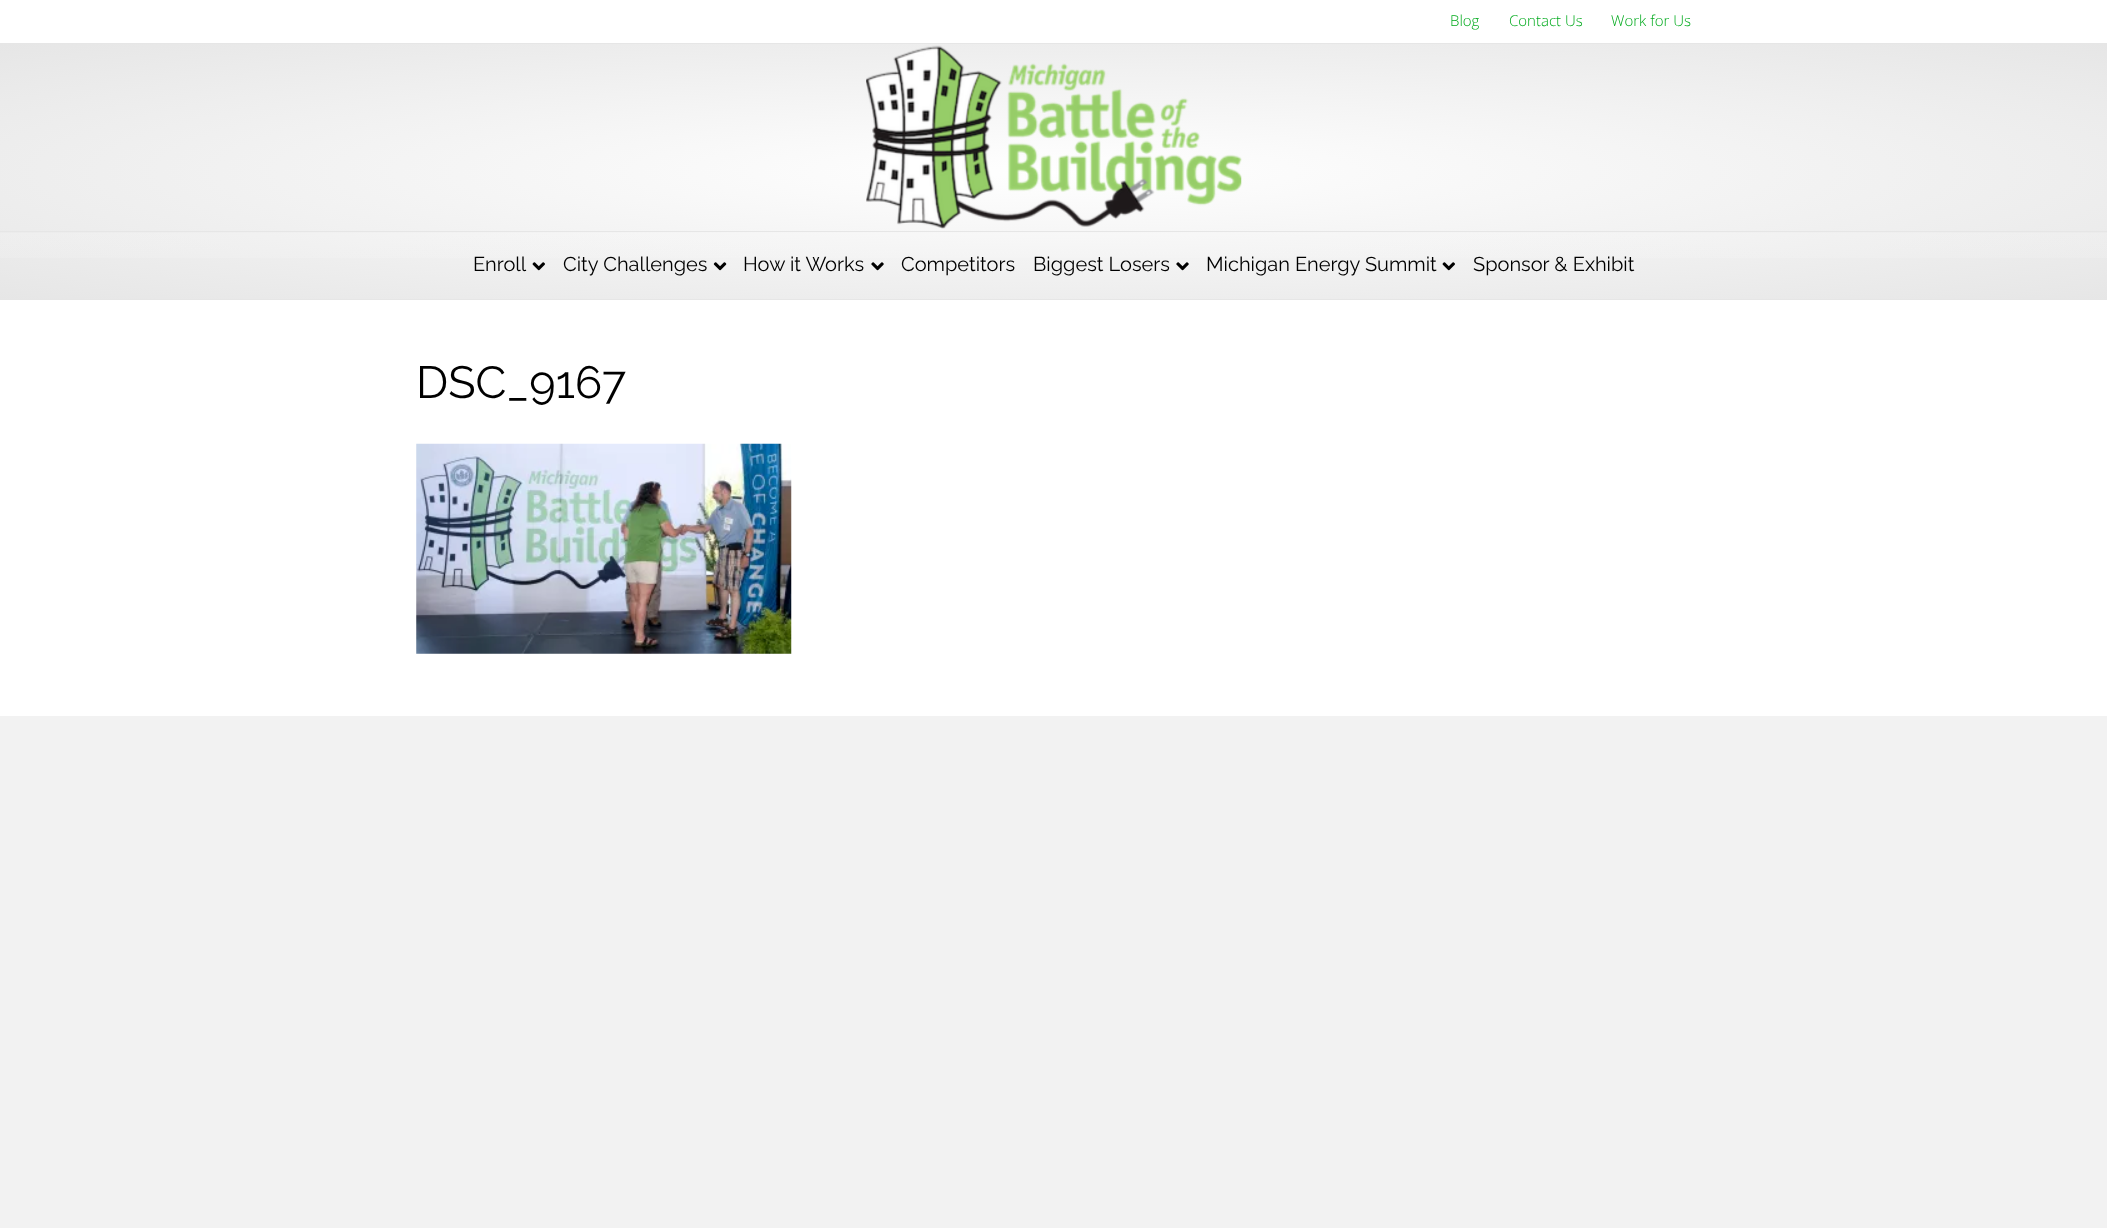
(async () => {
    const canvas = document.querySelector("canvas");
    canvas.width = 2107;
    canvas.height = 1228;
    const context = canvas.getContext("2d");
    context.miterLimit = 4;
    context.fontKerning = "normal";
    function write(s, x, y, font, color) {
        context.font = font;
        context.fillStyle = color;
        context.fillText(s, x, y);
    }
    function block(x, y, w, h, color) {
        context.fillStyle = color;
        context.fillRect(x, y, w, h);
    }
    async function photo(src, x, y, w, h) {
        const img = new Image();
        img.src = src;
        await img.decode();
        context.drawImage(img, x, y, w, h);
    }
    let gradient;

    block(0, 0, 2107, 1228, "rgb(242, 242, 242)");
    block(0, 0, 2107, 43, "rgb(255, 255, 255)");
    block(0, 43, 2107, 1, "rgb(230, 230, 230)");
    write("Blog", 1450, 26, "300 15px Open Sans", "rgb(0, 170, 28)");
    write("Contact Us", 1509, 26, "300 15px Open Sans", "rgb(0, 170, 28)");
    write("Work for Us", 1611, 26, "300 15px Open Sans", "rgb(0, 170, 28)");
    gradient = context.createRadialGradient(1054, 1415.91, 0, 1054, 1415.91, 1490);
    gradient.addColorStop(0, "rgb(255, 255, 255)");
    gradient.addColorStop(1, "rgb(230, 230, 230)");
    context.fillStyle = gradient;
    context.beginPath();
    context.rect(0, 44, 2107, 255);
    context.save();
    context.clip();
    context.scale(1, 181 / 1490);
    context.fillRect(0, 0, 2107, 10109);
    context.restore();
    await photo("media/1.png", 866, 45, 376, 184);
    gradient = context.createLinearGradient(1054, 232, 1054, 299);
    gradient.addColorStop(0, "rgba(255, 255, 255, 0.15)");
    gradient.addColorStop(1, "rgba(242, 242, 242, 0.15)");
    context.fillStyle = gradient;
    context.fillRect(0, 233, 2107, 25);
    block(0, 231, 2107, 1, "rgb(230, 230, 230)");
    block(0, 299, 2107, 1, "rgb(230, 230, 230)");
    write("Enroll", 473, 271, "20px Raleway", "rgb(0, 0, 0)");
    await photo("media/2.png", 532, 262, 13, 9);
    write("City Challenges", 563, 271, "20px Raleway", "rgb(0, 0, 0)");
    await photo("media/3.png", 713, 262, 14, 9);
    write("How it Works", 743, 271, "20px Raleway", "rgb(0, 0, 0)");
    await photo("media/4.png", 871, 262, 13, 9);
    write("Competitors", 901, 271, "20px Raleway", "rgb(0, 0, 0)");
    write("Biggest Losers", 1033, 271, "20px Raleway", "rgb(0, 0, 0)");
    await photo("media/5.png", 1176, 262, 13, 9);
    write("Michigan Energy Summit", 1206, 271, "20px Raleway", "rgb(0, 0, 0)");
    await photo("media/6.png", 1442, 262, 13, 9);
    write("Sponsor & Exhibit", 1473, 271, "20px Raleway", "rgb(0, 0, 0)");
    block(0, 300, 2107, 416, "rgb(255, 255, 255)");
    write("DSC_9167", 416, 398, "45px Raleway", "rgb(0, 0, 0)");
    await photo("media/7.png", 416, 443, 376, 211);
})();
